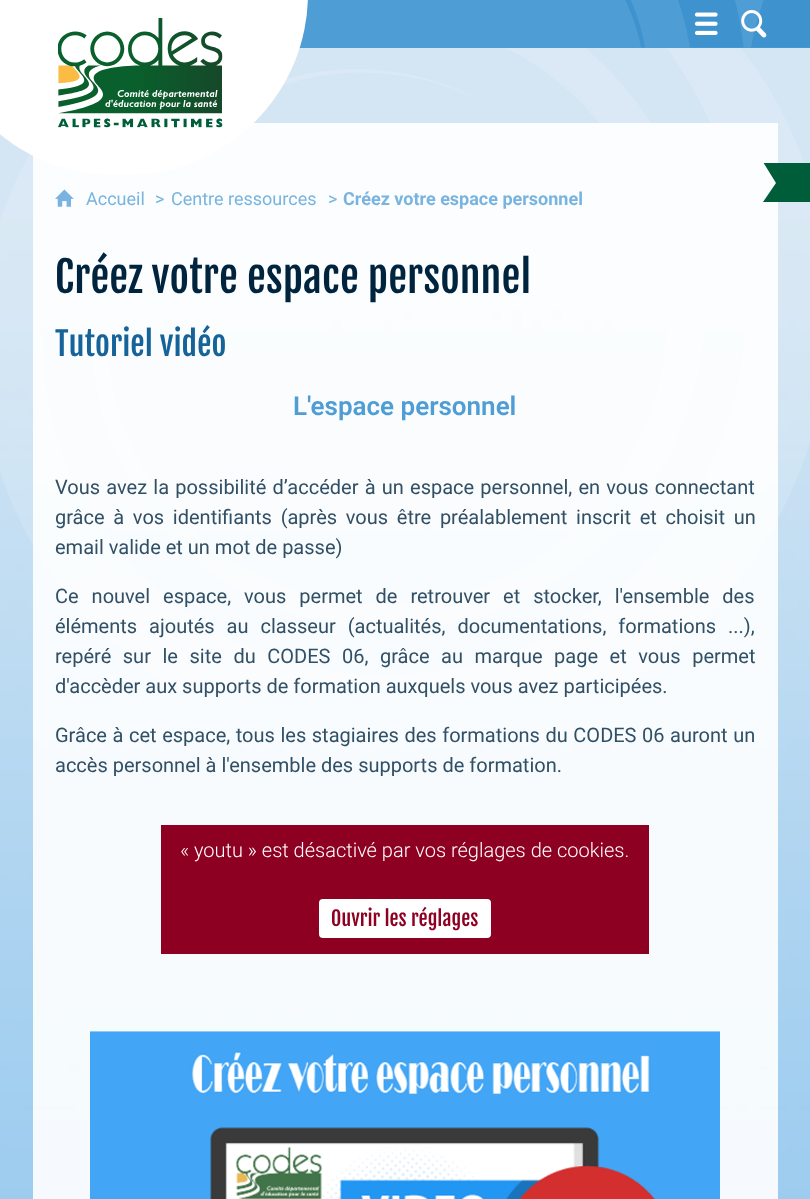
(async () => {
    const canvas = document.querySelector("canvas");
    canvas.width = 810;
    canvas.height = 1199;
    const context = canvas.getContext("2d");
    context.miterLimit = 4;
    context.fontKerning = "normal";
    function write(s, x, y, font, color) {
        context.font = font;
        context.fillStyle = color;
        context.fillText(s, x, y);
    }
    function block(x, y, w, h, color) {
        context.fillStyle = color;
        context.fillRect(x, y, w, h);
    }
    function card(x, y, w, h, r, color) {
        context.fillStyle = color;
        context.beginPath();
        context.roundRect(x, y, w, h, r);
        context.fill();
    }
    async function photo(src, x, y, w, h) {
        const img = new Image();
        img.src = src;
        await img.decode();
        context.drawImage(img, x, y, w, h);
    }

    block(0, 0, 810, 1199, "rgb(255, 255, 255)");
    await photo("media/1.png", 0, 48, 810, 1151);
    block(298, 0, 512, 48, "rgb(79, 157, 213)");
    block(33, 123, 745, 1076, "rgba(255, 255, 255, 0.9)");
    card(-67, -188, 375, 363, 187.5, "rgb(255, 255, 255)");
    await photo("media/2.png", 58, 18, 165, 110);
    await photo("media/3.png", 625, 0, 185, 48);
    await photo("media/4.png", 694, 12, 24, 23);
    await photo("media/5.png", 741, 10, 26, 28);
    context.save();
    context.beginPath();
    context.rect(759, 163, 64, 40);
    context.clip();
    context.fillStyle = "rgb(0, 93, 58)";
    context.beginPath();
    context.moveTo(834, 202);
    context.lineTo(763, 202);
    context.lineTo(776, 183);
    context.lineTo(763, 162);
    context.lineTo(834, 162);
    context.closePath();
    context.fill();
    context.restore();
    await photo("media/6.png", 55, 189, 19, 18);
    write("Accueil", 86, 205, "18px Roboto", "rgb(120, 180, 223)");
    write(">", 155, 205, "18px Roboto", "rgb(120, 180, 223)");
    write("Centre ressources", 171, 205, "18px Roboto", "rgb(120, 180, 223)");
    write(">", 328, 205, "18px Roboto", "rgb(120, 180, 223)");
    write("Créez votre espace personnel", 343, 205, "bold 18px Roboto", "rgb(120, 180, 223)");
    write("Créez votre espace personnel", 55, 293, "42px Fjalla One", "rgb(0, 36, 62)");
    write("Tutoriel vidéo", 55, 356, "32px Fjalla One", "rgb(22, 99, 153)");
    write("L'espace personnel", 293, 415, "600 26px Roboto", "rgb(79, 157, 213)");
    context.wordSpacing = "1.25px";
    write("Vous avez la possibilité d’accéder à un espace personnel, en vous connectant", 55, 494, "20px Roboto", "rgb(49, 80, 101)");
    context.wordSpacing = "3.75px";
    write("grâce à vos identifiants (après vous être préalablement inscrit et choisit un", 55, 524, "20px Roboto", "rgb(49, 80, 101)");
    context.wordSpacing = "0px";
    write("email valide et un mot de passe)", 55, 554, "20px Roboto", "rgb(49, 80, 101)");
    context.wordSpacing = "8px";
    write("Ce nouvel espace, vous permet de retrouver et stocker, l'ensemble des", 55, 603, "20px Roboto", "rgb(49, 80, 101)");
    context.wordSpacing = "7px";
    write("éléments ajoutés au classeur (actualités, documentations, formations ...),", 55, 633, "20px Roboto", "rgb(49, 80, 101)");
    context.wordSpacing = "6.6px";
    write("repéré sur le site du CODES 06, grâce au marque page et vous permet", 55, 663, "20px Roboto", "rgb(49, 80, 101)");
    context.wordSpacing = "0px";
    write("d'accèder aux supports de formation auxquels vous avez participées.", 55, 693, "20px Roboto", "rgb(49, 80, 101)");
    context.wordSpacing = "0.6px";
    write("Grâce à cet espace, tous les stagiaires des formations du CODES 06 auront un", 55, 742, "20px Roboto", "rgb(49, 80, 101)");
    context.wordSpacing = "0px";
    write("accès personnel à l'ensemble des supports de formation.", 55, 772, "20px Roboto", "rgb(49, 80, 101)");
    block(161, 825, 488, 129, "rgb(141, 0, 33)");
    write("« youtu » est désactivé par vos réglages de cookies.", 180, 857, "300 20px Roboto", "rgb(255, 255, 255)");
    card(319, 899, 172, 39, 4, "rgb(255, 255, 255)");
    write("Ouvrir les réglages", 331, 926, "20px Fjalla One", "rgb(141, 0, 33)");
    await photo("media/7.png", 90, 1031, 630, 168);
})();
